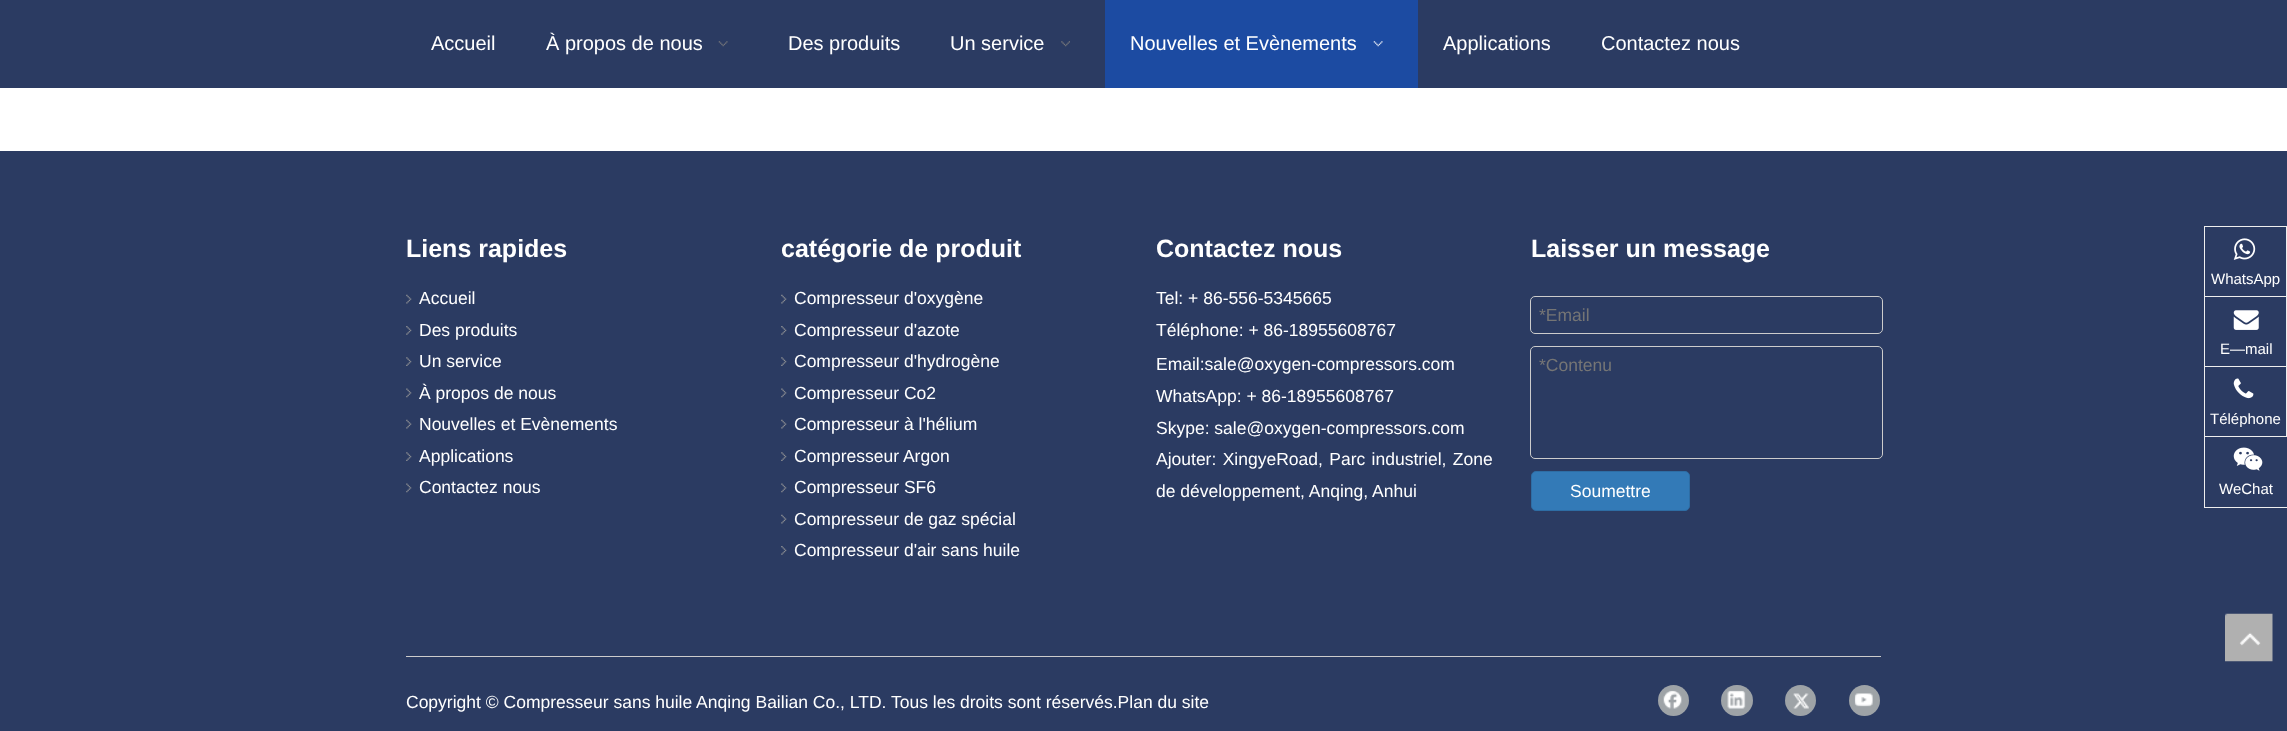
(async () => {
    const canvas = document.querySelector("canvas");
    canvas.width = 2287;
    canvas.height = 731;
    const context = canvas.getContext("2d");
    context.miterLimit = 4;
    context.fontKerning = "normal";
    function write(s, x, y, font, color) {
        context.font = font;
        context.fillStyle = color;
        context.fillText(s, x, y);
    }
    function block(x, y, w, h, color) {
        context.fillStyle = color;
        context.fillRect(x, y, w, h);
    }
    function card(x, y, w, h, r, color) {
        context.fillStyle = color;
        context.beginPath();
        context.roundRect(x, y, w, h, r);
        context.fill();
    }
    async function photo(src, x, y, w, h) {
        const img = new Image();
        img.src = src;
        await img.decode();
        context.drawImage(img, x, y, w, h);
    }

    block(0, 0, 2287, 731, "rgb(255, 255, 255)");
    block(0, 0, 2287, 88, "rgb(43, 59, 98)");
    write("Accueil", 431, 50, "20px Liberation Sans", "rgb(255, 255, 255)");
    write("À propos de nous", 546, 50, "20px Liberation Sans", "rgb(255, 255, 255)");
    await photo("media/1.png", 718, 41, 10, 6);
    write("Des produits", 788, 50, "20px Liberation Sans", "rgb(255, 255, 255)");
    write("Un service", 950, 50, "20px Liberation Sans", "rgb(255, 255, 255)");
    await photo("media/2.png", 1061, 41, 9, 6);
    block(1105, 0, 313, 88, "rgb(28, 75, 162)");
    write("Nouvelles et Evènements", 1130, 50, "20px Liberation Sans", "rgb(255, 255, 255)");
    await photo("media/3.png", 1373, 41, 10, 6);
    write("Applications", 1443, 50, "20px Liberation Sans", "rgb(255, 255, 255)");
    write("Contactez nous", 1601, 50, "20px Liberation Sans", "rgb(255, 255, 255)");
    block(0, 151, 2287, 580, "rgb(43, 59, 98)");
    write("Liens rapides", 406, 257, "bold 25px Liberation Sans", "rgb(255, 255, 255)");
    await photo("media/4.png", 406, 294, 6, 10);
    write("Accueil", 419, 304, "17.5px Liberation Sans", "rgb(255, 255, 255)");
    await photo("media/5.png", 406, 326, 6, 9);
    write("Des produits", 419, 336, "17.5px Liberation Sans", "rgb(255, 255, 255)");
    await photo("media/6.png", 406, 357, 6, 9);
    write("Un service", 419, 367, "17.5px Liberation Sans", "rgb(255, 255, 255)");
    await photo("media/7.png", 406, 388, 6, 10);
    write("À propos de nous", 419, 399, "17.5px Liberation Sans", "rgb(255, 255, 255)");
    await photo("media/4.png", 406, 419, 6, 10);
    write("Nouvelles et Evènements", 419, 430, "17.5px Liberation Sans", "rgb(255, 255, 255)");
    await photo("media/6.png", 406, 452, 6, 9);
    write("Applications", 419, 462, "17.5px Liberation Sans", "rgb(255, 255, 255)");
    await photo("media/7.png", 406, 483, 6, 10);
    write("Contactez nous", 419, 493, "17.5px Liberation Sans", "rgb(255, 255, 255)");
    write("catégorie de produit", 781, 257, "bold 25px Liberation Sans", "rgb(255, 255, 255)");
    await photo("media/8.png", 781, 294, 6, 10);
    write("Compresseur d'oxygène", 794, 304, "17.5px Liberation Sans", "rgb(255, 255, 255)");
    await photo("media/9.png", 781, 326, 6, 9);
    write("Compresseur d'azote", 794, 336, "17.5px Liberation Sans", "rgb(255, 255, 255)");
    await photo("media/10.png", 781, 357, 6, 9);
    write("Compresseur d'hydrogène", 794, 367, "17.5px Liberation Sans", "rgb(255, 255, 255)");
    await photo("media/11.png", 781, 388, 6, 10);
    write("Compresseur Co2", 794, 399, "17.5px Liberation Sans", "rgb(255, 255, 255)");
    await photo("media/8.png", 781, 419, 6, 10);
    write("Compresseur à l'hélium", 794, 430, "17.5px Liberation Sans", "rgb(255, 255, 255)");
    await photo("media/10.png", 781, 452, 6, 9);
    write("Compresseur Argon", 794, 462, "17.5px Liberation Sans", "rgb(255, 255, 255)");
    await photo("media/11.png", 781, 483, 6, 10);
    write("Compresseur SF6", 794, 493, "17.5px Liberation Sans", "rgb(255, 255, 255)");
    await photo("media/8.png", 781, 514, 6, 10);
    write("Compresseur de gaz spécial", 794, 525, "17.5px Liberation Sans", "rgb(255, 255, 255)");
    await photo("media/9.png", 781, 546, 6, 9);
    write("Compresseur d'air sans huile", 794, 556, "17.5px Liberation Sans", "rgb(255, 255, 255)");
    write("Contactez nous", 1156, 257, "bold 25px Liberation Sans", "rgb(255, 255, 255)");
    write("Tel: + 86-556-5345665", 1156, 304, "17.5px Liberation Sans", "rgb(255, 255, 255)");
    write("Téléphone: + 86-18955608767", 1156, 336, "17.5px Liberation Sans", "rgb(255, 255, 255)");
    write("Email:sale@oxygen-compressors.com", 1156, 370, "17.5px Liberation Sans", "rgb(255, 255, 255)");
    write("WhatsApp: + 86-18955608767", 1156, 402, "17.5px Liberation Sans", "rgb(255, 255, 255)");
    write("Skype: sale@oxygen-compressors.com", 1156, 434, "17.5px Liberation Sans", "rgb(255, 255, 255)");
    context.wordSpacing = "1.5px";
    write("Ajouter: XingyeRoad, Parc industriel, Zone", 1156, 465, "17.5px Liberation Sans", "rgb(255, 255, 255)");
    context.wordSpacing = "0px";
    write("de développement, Anqing, Anhui", 1156, 497, "17.5px Liberation Sans", "rgb(255, 255, 255)");
    write("Laisser un message", 1531, 257, "bold 25px Liberation Sans", "rgb(255, 255, 255)");
    context.beginPath();
    context.roundRect(1530.5, 296.5, 352, 37, 4.5);
    context.strokeStyle = "rgb(204, 204, 204)";
    context.stroke();
    write("*Email", 1539, 321, "17.5px Liberation Sans", "rgb(117, 117, 117)");
    context.beginPath();
    context.roundRect(1530.5, 346.5, 352, 112, 4.5);
    context.stroke();
    write("*Contenu", 1539, 371, "17.5px Liberation Sans", "rgb(117, 117, 117)");
    context.fillStyle = "rgb(51, 122, 183)";
    context.beginPath();
    context.roundRect(1531.5, 471.5, 158, 39, 4.5);
    context.fill();
    context.strokeStyle = "rgb(46, 109, 164)";
    context.stroke();
    write("Soumettre", 1570, 497, "17.5px Liberation Sans", "rgb(255, 255, 255)");
    block(2204, 226, 83, 1, "rgb(238, 238, 238)");
    block(2286, 226, 1, 70, "rgb(238, 238, 238)");
    block(2204, 226, 1, 70, "rgb(238, 238, 238)");
    await photo("media/12.png", 2233, 238, 23, 22);
    write("WhatsApp", 2211, 284, "15px Liberation Sans", "rgb(255, 255, 255)");
    block(2204, 296, 83, 1, "rgb(238, 238, 238)");
    block(2286, 296, 1, 70, "rgb(238, 238, 238)");
    block(2204, 296, 1, 70, "rgb(238, 238, 238)");
    await photo("media/13.png", 2233, 310, 26, 20);
    write("E—mail", 2220, 354, "15px Liberation Sans", "rgb(255, 255, 255)");
    block(2204, 366, 83, 1, "rgb(238, 238, 238)");
    block(2286, 366, 1, 70, "rgb(238, 238, 238)");
    block(2204, 366, 1, 70, "rgb(238, 238, 238)");
    await photo("media/14.png", 2233, 378, 21, 21);
    write("Téléphone", 2210, 424, "15px Liberation Sans", "rgb(255, 255, 255)");
    context.strokeStyle = "rgb(238, 238, 238)";
    context.strokeRect(2204.5, 436.5, 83, 71);
    await photo("media/15.png", 2233, 447, 30, 24);
    write("WeChat", 2219, 494, "15px Liberation Sans", "rgb(255, 255, 255)");
    block(406, 656, 1475, 1, "rgb(204, 204, 204)");
    write("Copyright © Compresseur sans huile Anqing Bailian Co., LTD. Tous les droits sont réservés.Plan du site", 406, 708, "17.5px Liberation Sans", "rgb(255, 255, 255)");
    context.fillStyle = "rgb(158, 163, 167)";
    context.beginPath();
    context.arc(1673.5, 700.5, 15.5, 0, Math.PI * 2);
    context.fill();
    await photo("media/16.png", 1663, 690, 19, 19);
    card(1721, 685, 32, 31, 15.5, "rgb(158, 163, 167)");
    await photo("media/17.png", 1727, 690, 19, 19);
    context.beginPath();
    context.arc(1800.5, 700.5, 15.5, 0, Math.PI * 2);
    context.fill();
    await photo("media/18.png", 1793, 693, 16, 16);
    context.beginPath();
    context.arc(1864.5, 700.5, 15.5, 0, Math.PI * 2);
    context.fill();
    await photo("media/19.png", 1854, 693, 19, 14);
    await photo("media/20.png", 2225, 613, 48, 49);
})();
